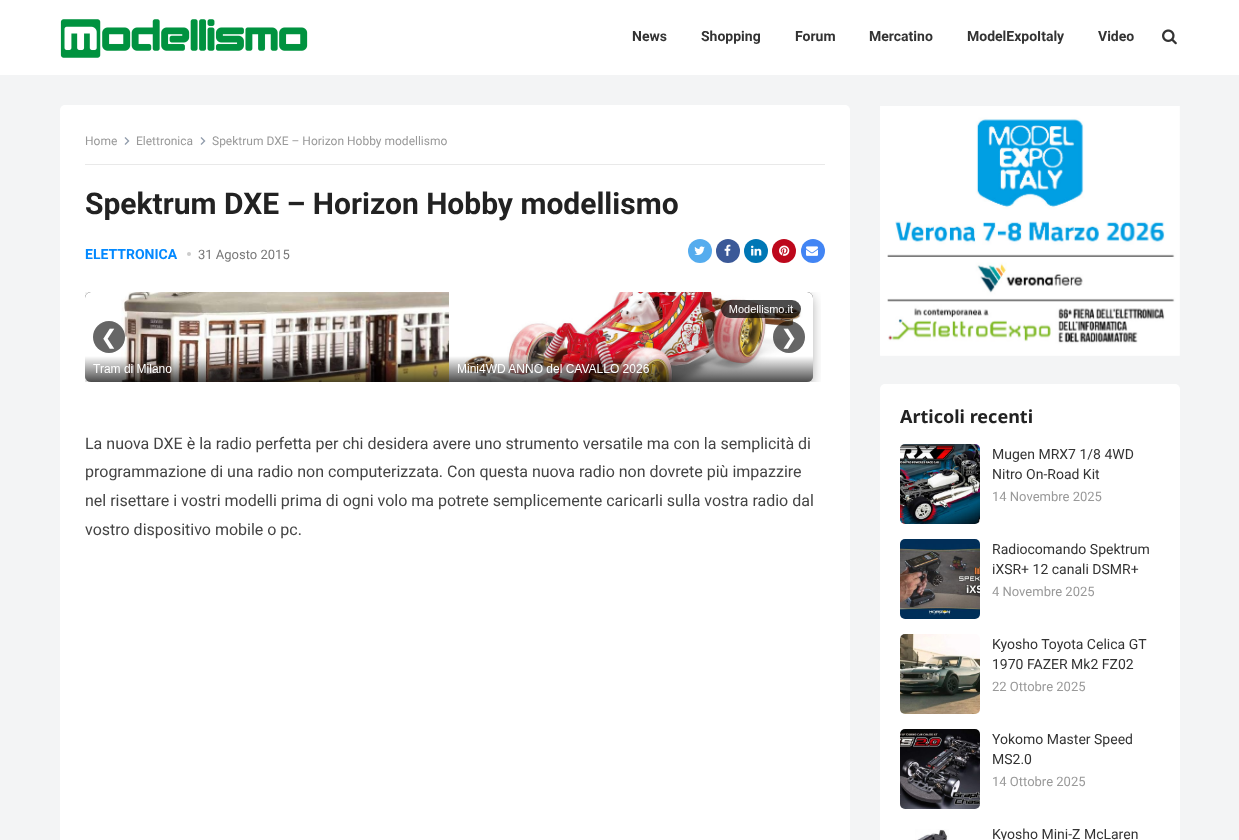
(async () => {
    const canvas = document.querySelector("canvas");
    canvas.width = 1239;
    canvas.height = 840;
    const context = canvas.getContext("2d");
    context.miterLimit = 4;
    context.fontKerning = "normal";
    function write(s, x, y, font, color) {
        context.font = font;
        context.fillStyle = color;
        context.fillText(s, x, y);
    }
    function block(x, y, w, h, color) {
        context.fillStyle = color;
        context.fillRect(x, y, w, h);
    }
    function card(x, y, w, h, r, color) {
        context.fillStyle = color;
        context.beginPath();
        context.roundRect(x, y, w, h, r);
        context.fill();
    }
    async function photo(src, x, y, w, h) {
        const img = new Image();
        img.src = src;
        await img.decode();
        context.drawImage(img, x, y, w, h);
    }

    block(0, 0, 1239, 840, "rgb(243, 244, 245)");
    block(0, 0, 1239, 75, "rgb(255, 255, 255)");
    await photo("media/1.png", 60, 19, 248, 39);
    write("News", 632, 41, "bold 14px Roboto", "rgb(51, 51, 51)");
    write("Shopping", 701, 41, "bold 14px Roboto", "rgb(51, 51, 51)");
    write("Forum", 795, 41, "bold 14px Roboto", "rgb(51, 51, 51)");
    write("Mercatino", 869, 41, "bold 14px Roboto", "rgb(51, 51, 51)");
    write("ModelExpoItaly", 967, 41, "bold 14px Roboto", "rgb(51, 51, 51)");
    write("Video", 1098, 41, "bold 14px Roboto", "rgb(51, 51, 51)");
    await photo("media/2.png", 1162, 29, 15, 16);
    card(60, 105, 790, 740, 5, "rgb(255, 255, 255)");
    block(85, 164, 740, 1, "rgb(233, 233, 233)");
    write("Home", 85, 145, "12px Roboto", "rgb(153, 153, 153)");
    await photo("media/3.png", 124, 137, 6, 8);
    write("Elettronica", 136, 145, "12px Roboto", "rgb(153, 153, 153)");
    await photo("media/3.png", 200, 137, 6, 8);
    write("Spektrum DXE – Horizon Hobby modellismo", 212, 145, "12px Roboto", "rgb(153, 153, 153)");
    write("Spektrum DXE – Horizon Hobby modellismo", 85, 214, "bold 30px Roboto", "rgb(34, 34, 34)");
    write("ELETTRONICA", 85, 259, "bold 14px Roboto", "rgb(3, 137, 255)");
    context.fillStyle = "rgb(204, 204, 204)";
    context.beginPath();
    context.arc(189, 254, 2, 0, Math.PI * 2);
    context.fill();
    write("31 Agosto 2015", 198, 259, "13px Roboto", "rgb(119, 119, 119)");
    context.fillStyle = "rgb(85, 172, 238)";
    context.beginPath();
    context.arc(700, 251, 12, 0, Math.PI * 2);
    context.fill();
    await photo("media/4.png", 694, 246, 11, 9);
    context.fillStyle = "rgb(59, 89, 152)";
    context.beginPath();
    context.arc(728, 251, 12, 0, Math.PI * 2);
    context.fill();
    await photo("media/5.png", 724, 244, 7, 12);
    context.fillStyle = "rgb(0, 119, 181)";
    context.beginPath();
    context.arc(756, 251, 12, 0, Math.PI * 2);
    context.fill();
    await photo("media/6.png", 751, 245, 11, 11);
    context.fillStyle = "rgb(189, 8, 28)";
    context.beginPath();
    context.arc(784, 251, 12, 0, Math.PI * 2);
    context.fill();
    await photo("media/7.png", 779, 245, 11, 11);
    context.fillStyle = "rgb(66, 133, 244)";
    context.beginPath();
    context.arc(813, 251, 12, 0, Math.PI * 2);
    context.fill();
    await photo("media/8.png", 806, 246, 12, 10);
    await photo("media/9.png", 85, 292, 736, 90);
    write("La nuova DXE è la radio perfetta per chi desidera avere uno strumento versatile ma con la semplicità di", 85, 449, "16px Roboto", "rgb(68, 68, 68)");
    write("programmazione di una radio non computerizzata. Con questa nuova radio non dovrete più impazzire", 85, 477, "16px Roboto", "rgb(68, 68, 68)");
    write("nel risettare i vostri modelli prima di ogni volo ma potrete semplicemente caricarli sulla vostra radio dal", 85, 506, "16px Roboto", "rgb(68, 68, 68)");
    write("vostro dispositivo mobile o pc.", 85, 535, "16px Roboto", "rgb(68, 68, 68)");
    await photo("media/10.png", 880, 106, 300, 250);
    card(880, 384, 300, 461, 5, "rgb(255, 255, 255)");
    write("Articoli recenti", 900, 423, "bold 18px Noto Sans", "rgb(34, 34, 34)");
    await photo("media/11.png", 900, 444, 80, 80);
    write("Mugen MRX7 1/8 4WD", 992, 459, "14px Roboto", "rgb(51, 51, 51)");
    write("Nitro On-Road Kit", 992, 479, "14px Roboto", "rgb(51, 51, 51)");
    write("14 Novembre 2025", 992, 501, "13px Roboto", "rgb(153, 153, 153)");
    await photo("media/12.png", 900, 539, 80, 80);
    write("Radiocomando Spektrum", 992, 554, "14px Roboto", "rgb(51, 51, 51)");
    write("iXSR+ 12 canali DSMR+", 992, 574, "14px Roboto", "rgb(51, 51, 51)");
    write("4 Novembre 2025", 992, 596, "13px Roboto", "rgb(153, 153, 153)");
    await photo("media/13.png", 900, 634, 80, 80);
    write("Kyosho Toyota Celica GT", 992, 649, "14px Roboto", "rgb(51, 51, 51)");
    write("1970 FAZER Mk2 FZ02", 992, 669, "14px Roboto", "rgb(51, 51, 51)");
    write("22 Ottobre 2025", 992, 691, "13px Roboto", "rgb(153, 153, 153)");
    await photo("media/14.png", 900, 729, 80, 80);
    write("Yokomo Master Speed", 992, 744, "14px Roboto", "rgb(51, 51, 51)");
    write("MS2.0", 992, 764, "14px Roboto", "rgb(51, 51, 51)");
    write("14 Ottobre 2025", 992, 786, "13px Roboto", "rgb(153, 153, 153)");
    await photo("media/15.png", 915, 829, 34, 11);
    write("Kyosho Mini-Z McLaren", 992, 839, "14px Roboto", "rgb(51, 51, 51)");
})();
